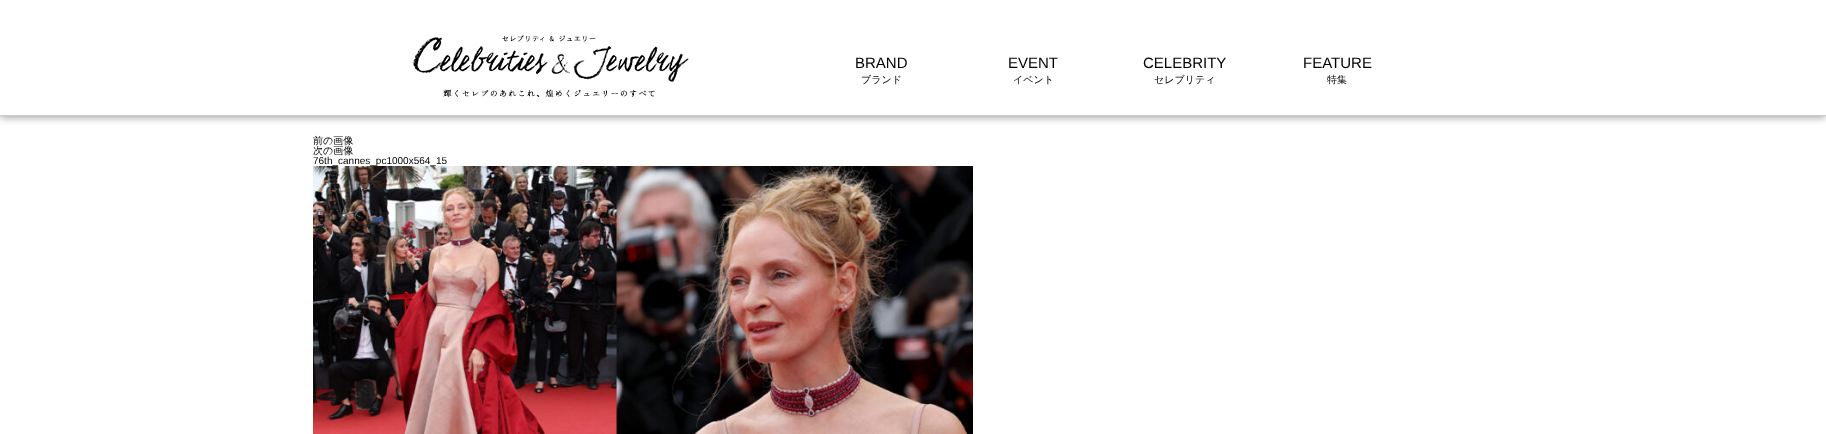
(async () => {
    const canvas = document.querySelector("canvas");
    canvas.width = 1826;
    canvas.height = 434;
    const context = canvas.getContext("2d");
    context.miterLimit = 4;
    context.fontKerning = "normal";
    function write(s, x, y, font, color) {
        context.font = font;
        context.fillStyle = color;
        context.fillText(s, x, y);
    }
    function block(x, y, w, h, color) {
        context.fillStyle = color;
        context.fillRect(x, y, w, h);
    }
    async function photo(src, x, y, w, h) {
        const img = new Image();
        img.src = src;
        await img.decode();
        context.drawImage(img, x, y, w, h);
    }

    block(0, 0, 1826, 434, "rgb(255, 255, 255)");
    context.save();
    context.beginPath();
    context.rect(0, 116, 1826, 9);
    context.clip();
    context.fillStyle = "rgba(0, 0, 0, 0.5)";
    context.filter = "blur(5px)";
    context.beginPath();
    context.rect(0, 0, 1826, 116);
    context.fill();
    context.filter = "none";
    context.restore();
    block(0, 115, 1826, 1, "rgb(204, 204, 204)");
    await photo("media/1.png", 413, 35, 276, 63);
    write("BRAND", 855, 68, "15px Liberation Sans", "rgb(0, 0, 0)");
    write("ブランド", 861, 83, "500 10px WenQuanYi Zen Hei", "rgb(0, 0, 0)");
    write("EVENT", 1008, 68, "15px Liberation Sans", "rgb(0, 0, 0)");
    write("イベント", 1013, 83, "500 10px WenQuanYi Zen Hei", "rgb(0, 0, 0)");
    write("CELEBRITY", 1143, 68, "15px Liberation Sans", "rgb(0, 0, 0)");
    write("セレブリティ", 1154, 83, "500 10px WenQuanYi Zen Hei", "rgb(0, 0, 0)");
    write("FEATURE", 1303, 68, "15px Liberation Sans", "rgb(0, 0, 0)");
    write("特集", 1327, 83, "500 10px WenQuanYi Zen Hei", "rgb(0, 0, 0)");
    write("前の画像", 313, 144, "500 10px WenQuanYi Zen Hei", "rgb(0, 0, 0)");
    write("次の画像", 313, 154, "500 10px WenQuanYi Zen Hei", "rgb(0, 0, 0)");
    write("76th_cannes_pc1000x564_15", 313, 164, "10px Liberation Sans", "rgb(0, 0, 0)");
    await photo("media/2.png", 313, 166, 660, 268);
})();
